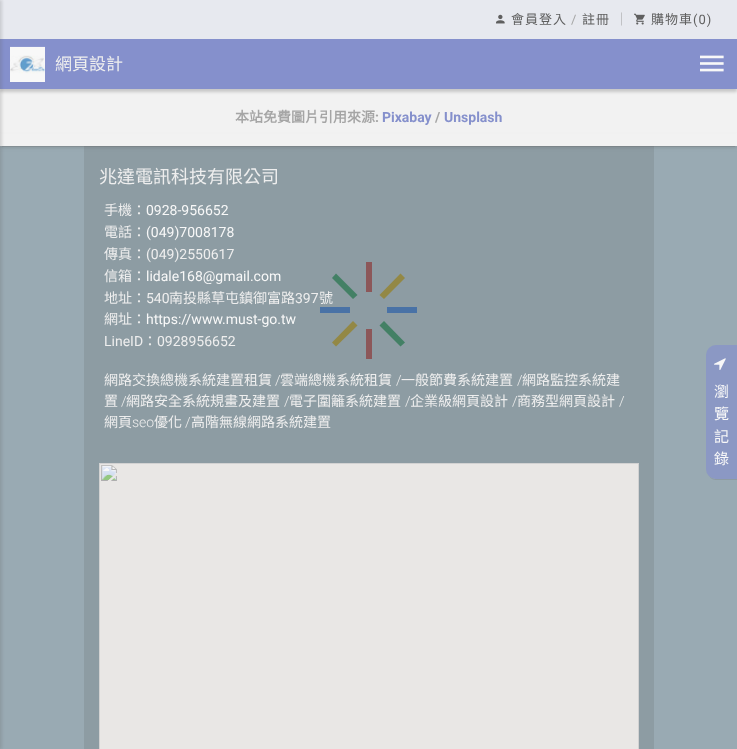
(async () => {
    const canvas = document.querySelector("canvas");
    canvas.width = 737;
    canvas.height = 749;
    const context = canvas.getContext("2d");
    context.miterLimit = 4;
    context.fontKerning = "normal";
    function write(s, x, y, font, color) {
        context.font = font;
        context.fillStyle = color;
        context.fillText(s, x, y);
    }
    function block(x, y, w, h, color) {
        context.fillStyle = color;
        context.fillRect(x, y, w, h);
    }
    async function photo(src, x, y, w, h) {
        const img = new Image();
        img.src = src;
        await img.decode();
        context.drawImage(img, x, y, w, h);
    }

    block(0, 0, 737, 749, "rgb(242, 242, 242)");
    block(0, 0, 737, 39, "rgb(231, 233, 239)");
    context.fillStyle = "rgba(95, 95, 95, 0.29)";
    context.filter = "blur(1.5px)";
    context.beginPath();
    context.rect(0, 42, 737, 50);
    context.fill();
    context.filter = "none";
    block(0, 39, 737, 50, "rgb(133, 144, 204)");
    block(0, 146, 737, 603, "rgb(153, 170, 179)");
    block(84, 146, 570, 603, "rgb(141, 156, 163)");
    context.fillStyle = "rgba(95, 95, 95, 0.12)";
    context.filter = "blur(2.5px)";
    context.beginPath();
    context.rect(0, 137, 737, 10);
    context.fill();
    context.filter = "none";
    context.fillStyle = "rgba(95, 95, 95, 0.2)";
    context.filter = "blur(0.5px)";
    context.beginPath();
    context.rect(2, 141, 733, 6);
    context.fill();
    context.filter = "none";
    context.fillStyle = "rgba(95, 95, 95, 0.14)";
    context.filter = "blur(1px)";
    context.beginPath();
    context.rect(0, 138, 737, 10);
    context.fill();
    context.filter = "none";
    block(0, 134, 737, 12, "rgb(242, 242, 242)");
    context.fillStyle = "rgba(95, 95, 95, 0.21)";
    context.filter = "blur(1.5px)";
    context.beginPath();
    context.rect(-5, 0, 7, 749);
    context.fill();
    context.filter = "none";
    await photo("media/1.png", 496, 14, 9, 10);
    context.letterSpacing = "1px";
    write("會員登入", 511, 24, "13px Noto Sans CJK TC", "rgb(95, 95, 95)");
    write("/", 571, 24, "13px Roboto", "rgb(165, 165, 165)");
    write("註冊", 582, 24, "13px Noto Sans CJK TC", "rgb(95, 95, 95)");
    write("｜", 615, 24, "13px Noto Sans CJK TC", "rgb(165, 165, 165)");
    await photo("media/2.png", 634, 13, 11, 12);
    write("購物車", 651, 24, "13px Noto Sans CJK TC", "rgb(95, 95, 95)");
    write("(0)", 693, 24, "13px Roboto", "rgb(95, 95, 95)");
    block(10, 47, 35, 35, "rgb(248, 248, 248)");
    await photo("media/3.png", 10, 46, 35, 28);
    context.letterSpacing = "0px";
    write("網頁設計", 55, 70, "17px Noto Sans CJK TC", "rgb(238, 238, 238)");
    await photo("media/4.png", 700, 55, 24, 17);
    write("本站免費圖片引用來源", 235, 122, "bold 14px Noto Sans CJK TC", "rgb(165, 165, 165)");
    write(":", 375, 122, "bold 14px Roboto", "rgb(165, 165, 165)");
    write("Pixabay", 382, 122, "bold 14px Roboto", "rgb(133, 144, 204)");
    write("/", 435, 122, "bold 14px Roboto", "rgb(165, 165, 165)");
    write("Unsplash", 444, 122, "bold 14px Roboto", "rgb(133, 144, 204)");
    write("兆達電訊科技有限公司", 99, 183, "18px Noto Sans CJK TC", "rgb(238, 238, 238)");
    write("手機：", 104, 215, "14px Noto Sans CJK TC", "rgb(238, 238, 238)");
    write("0928-956652", 146, 215, "14px Roboto", "rgb(248, 248, 248)");
    write("電話：", 104, 237, "14px Noto Sans CJK TC", "rgb(238, 238, 238)");
    write("(049)7008178", 146, 237, "14px Roboto", "rgb(248, 248, 248)");
    write("傳真：", 104, 259, "14px Noto Sans CJK TC", "rgb(238, 238, 238)");
    write("(049)2550617", 146, 259, "14px Roboto", "rgb(238, 238, 238)");
    write("信箱：", 104, 281, "14px Noto Sans CJK TC", "rgb(238, 238, 238)");
    write("lidale168@gmail.com", 146, 281, "14px Roboto", "rgb(248, 248, 248)");
    write("地址：", 104, 303, "14px Noto Sans CJK TC", "rgb(238, 238, 238)");
    write("540", 146, 303, "14px Roboto", "rgb(238, 238, 238)");
    write("南投縣草屯鎮御富路", 169, 303, "14px Noto Sans CJK TC", "rgb(238, 238, 238)");
    write("397", 295, 303, "14px Roboto", "rgb(238, 238, 238)");
    write("號", 319, 303, "14px Noto Sans CJK TC", "rgb(238, 238, 238)");
    write("網址：", 104, 324, "14px Noto Sans CJK TC", "rgb(238, 238, 238)");
    write("https://www.must-go.tw", 146, 324, "14px Roboto", "rgb(248, 248, 248)");
    write("LineID", 104, 346, "14px Roboto", "rgb(238, 238, 238)");
    write("：", 143, 346, "14px Noto Sans CJK TC", "rgb(238, 238, 238)");
    write("0928956652", 157, 346, "14px Roboto", "rgb(238, 238, 238)");
    write("網路交換總機系統建置租賃", 104, 385, "14px Noto Sans CJK TC", "rgb(238, 238, 238)");
    write("/", 275, 385, "300 14px Roboto", "rgb(238, 238, 238)");
    write("雲端總機系統租賃", 280, 385, "14px Noto Sans CJK TC", "rgb(238, 238, 238)");
    write("/", 396, 385, "300 14px Roboto", "rgb(238, 238, 238)");
    write("一般節費系統建置", 401, 385, "14px Noto Sans CJK TC", "rgb(238, 238, 238)");
    write("/", 517, 385, "300 14px Roboto", "rgb(238, 238, 238)");
    write("網路監控系統建", 522, 385, "14px Noto Sans CJK TC", "rgb(238, 238, 238)");
    write("置", 104, 406, "14px Noto Sans CJK TC", "rgb(238, 238, 238)");
    write("/", 121, 406, "300 14px Roboto", "rgb(238, 238, 238)");
    write("網路安全系統規畫及建置", 126, 406, "14px Noto Sans CJK TC", "rgb(238, 238, 238)");
    write("/", 284, 406, "300 14px Roboto", "rgb(238, 238, 238)");
    write("電子圍籬系統建置", 289, 406, "14px Noto Sans CJK TC", "rgb(238, 238, 238)");
    write("/", 405, 406, "300 14px Roboto", "rgb(238, 238, 238)");
    write("企業級網頁設計", 410, 406, "14px Noto Sans CJK TC", "rgb(238, 238, 238)");
    write("/", 512, 406, "300 14px Roboto", "rgb(238, 238, 238)");
    write("商務型網頁設計", 517, 406, "14px Noto Sans CJK TC", "rgb(238, 238, 238)");
    write("/", 619, 406, "300 14px Roboto", "rgb(238, 238, 238)");
    write("網頁", 104, 427, "14px Noto Sans CJK TC", "rgb(238, 238, 238)");
    write("seo", 132, 427, "300 14px Roboto", "rgb(238, 238, 238)");
    write("優化", 154, 427, "14px Noto Sans CJK TC", "rgb(238, 238, 238)");
    write("/", 185, 427, "300 14px Roboto", "rgb(238, 238, 238)");
    write("高階無線網路系統建置", 191, 427, "14px Noto Sans CJK TC", "rgb(238, 238, 238)");
    await photo("media/5.png", 99, 463, 540, 286);
    context.fillStyle = "rgb(67, 128, 101)";
    context.beginPath();
    context.moveTo(332, 278);
    context.lineTo(336, 273.5);
    context.lineTo(357.5, 295);
    context.lineTo(353, 299);
    context.closePath();
    context.fill();
    block(366, 262, 6, 30, "rgb(140, 87, 89)");
    context.fillStyle = "rgb(147, 136, 69)";
    context.beginPath();
    context.moveTo(400.5, 273.5);
    context.lineTo(405, 278);
    context.lineTo(384, 299);
    context.lineTo(379.5, 295);
    context.closePath();
    context.fill();
    block(320, 307, 30, 6, "rgb(73, 114, 166)");
    block(387, 307, 30, 6, "rgb(73, 114, 166)");
    context.fillStyle = "rgb(147, 136, 69)";
    context.beginPath();
    context.moveTo(336, 346.5);
    context.lineTo(332, 342.5);
    context.lineTo(353, 321);
    context.lineTo(357.5, 325.5);
    context.closePath();
    context.fill();
    block(366, 329, 6, 30, "rgb(140, 87, 89)");
    context.fillStyle = "rgb(67, 128, 101)";
    context.beginPath();
    context.moveTo(405, 342.5);
    context.lineTo(400.5, 346.5);
    context.lineTo(379.5, 325.5);
    context.lineTo(384, 321);
    context.closePath();
    context.fill();
    context.save();
    context.beginPath();
    context.moveTo(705, 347);
    context.lineTo(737, 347);
    context.lineTo(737, 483);
    context.lineTo(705, 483);
    context.closePath();
    context.moveTo(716, 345);
    context.lineTo(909, 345);
    context.lineTo(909, 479);
    context.lineTo(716, 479);
    context.bezierCurveTo(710.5, 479, 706, 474.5, 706, 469);
    context.lineTo(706, 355);
    context.bezierCurveTo(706, 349.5, 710.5, 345, 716, 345);
    context.closePath();
    context.clip("evenodd");
    context.fillStyle = "rgba(95, 95, 95, 0.2)";
    context.filter = "blur(0.5px)";
    context.beginPath();
    context.roundRect(708, 350, 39, 130, 8);
    context.fill();
    context.filter = "none";
    context.restore();
    context.fillStyle = "rgba(133, 144, 204, 0.7)";
    context.beginPath();
    context.roundRect(706, 345, 31, 134, [10, 0, 0, 10]);
    context.fill();
    await photo("media/6.png", 714, 358, 12, 12);
    write("瀏", 714, 397, "15px Noto Sans CJK TC", "rgb(248, 248, 248)");
    write("覽", 714, 419, "15px Noto Sans CJK TC", "rgb(248, 248, 248)");
    write("記", 714, 442, "15px Noto Sans CJK TC", "rgb(248, 248, 248)");
    write("錄", 714, 464, "15px Noto Sans CJK TC", "rgb(248, 248, 248)");
})();
